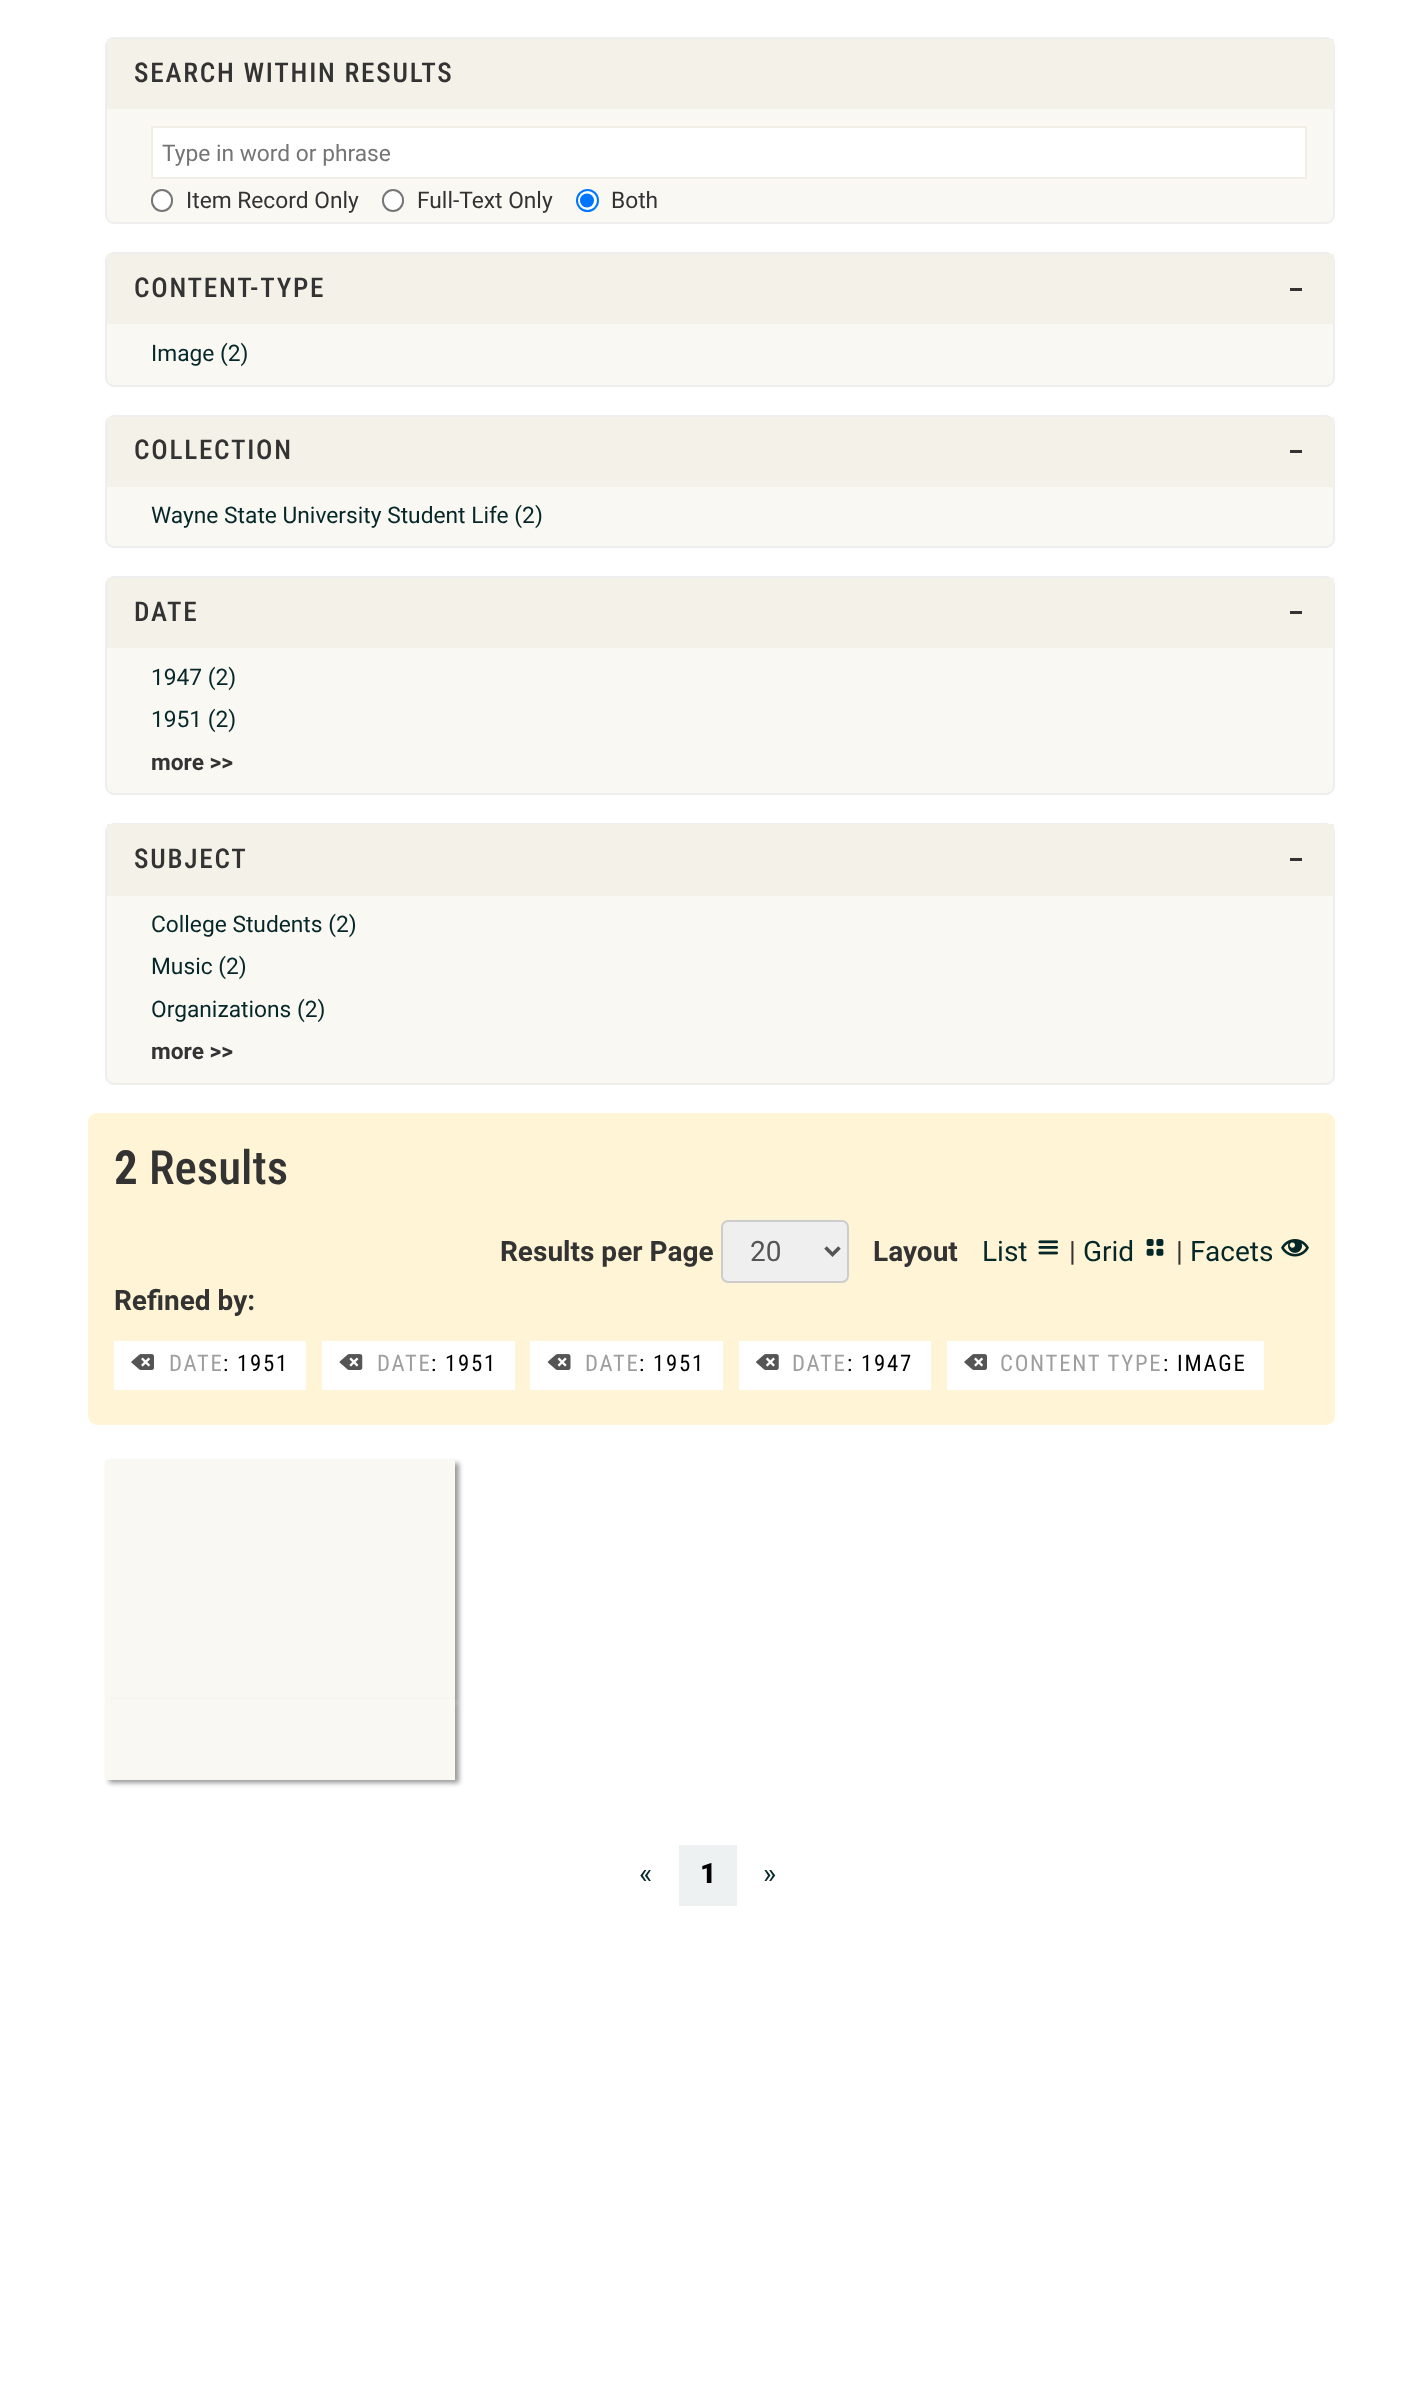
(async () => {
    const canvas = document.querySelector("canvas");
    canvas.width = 1422;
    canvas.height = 2398;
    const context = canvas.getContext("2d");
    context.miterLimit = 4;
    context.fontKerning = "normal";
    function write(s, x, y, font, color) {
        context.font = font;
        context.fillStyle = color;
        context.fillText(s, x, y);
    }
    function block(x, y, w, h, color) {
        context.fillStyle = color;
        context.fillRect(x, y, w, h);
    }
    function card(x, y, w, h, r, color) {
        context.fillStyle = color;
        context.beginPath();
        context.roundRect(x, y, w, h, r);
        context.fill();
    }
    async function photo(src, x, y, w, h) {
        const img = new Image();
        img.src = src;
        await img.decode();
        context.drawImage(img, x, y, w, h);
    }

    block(0, 0, 1422, 2398, "rgb(255, 255, 255)");
    context.fillStyle = "rgb(249, 248, 243)";
    context.beginPath();
    context.roundRect(106, 38, 1228, 185, 8);
    context.fill();
    context.strokeStyle = "rgb(238, 238, 238)";
    context.lineWidth = 2;
    context.stroke();
    block(107, 39, 1227, 70, "rgb(243, 241, 232)");
    context.letterSpacing = "1.75px";
    write("SEARCH WITHIN RESULTS", 134, 82, "500 27.25px Roboto Condensed", "rgb(51, 51, 51)");
    context.fillStyle = "rgb(255, 255, 255)";
    context.beginPath();
    context.rect(152, 127, 1154, 51);
    context.fill();
    context.strokeStyle = "rgb(241, 239, 229)";
    context.stroke();
    context.letterSpacing = "0px";
    write("Type in word or phrase", 162, 161, "22.75px Roboto", "rgb(117, 117, 117)");
    context.fillStyle = "rgb(255, 255, 255)";
    context.beginPath();
    context.roundRect(152, 190, 20, 21, 10);
    context.fill();
    context.strokeStyle = "rgb(118, 118, 118)";
    context.stroke();
    write("Item Record Only", 186, 208, "22.75px Roboto", "rgb(51, 51, 51)");
    context.fillStyle = "rgb(255, 255, 255)";
    context.beginPath();
    context.roundRect(383, 190, 20, 21, 10);
    context.fill();
    context.stroke();
    write("Full-Text Only", 417, 208, "22.75px Roboto", "rgb(51, 51, 51)");
    context.fillStyle = "rgb(255, 255, 255)";
    context.beginPath();
    context.arc(587.5, 200.5, 10.5, 0, Math.PI * 2);
    context.fill();
    context.strokeStyle = "rgb(0, 117, 255)";
    context.stroke();
    context.fillStyle = "rgb(0, 117, 255)";
    context.beginPath();
    context.arc(587, 200.5, 7, 0, Math.PI * 2);
    context.fill();
    write("Both", 611, 208, "22.75px Roboto", "rgb(51, 51, 51)");
    context.fillStyle = "rgb(249, 248, 243)";
    context.beginPath();
    context.roundRect(106, 253, 1228, 133, 8);
    context.fill();
    context.strokeStyle = "rgb(238, 238, 238)";
    context.stroke();
    block(107, 254, 1227, 70, "rgb(243, 241, 232)");
    context.letterSpacing = "1.75px";
    write("CONTENT-TYPE", 134, 297, "500 27.25px Roboto Condensed", "rgb(51, 51, 51)");
    block(1290, 288, 12, 3, "rgb(51, 51, 51)");
    context.letterSpacing = "0px";
    write("Image (2)", 151, 361, "22.75px Roboto", "rgb(6, 39, 40)");
    context.fillStyle = "rgb(249, 248, 243)";
    context.beginPath();
    context.roundRect(106, 416, 1228, 131, 8);
    context.fill();
    context.stroke();
    block(107, 417, 1227, 70, "rgb(243, 241, 232)");
    context.letterSpacing = "1.75px";
    write("COLLECTION", 134, 459, "500 27.25px Roboto Condensed", "rgb(51, 51, 51)");
    block(1290, 450, 12, 3, "rgb(51, 51, 51)");
    context.letterSpacing = "0px";
    write("Wayne State University Student Life (2)", 151, 523, "22.75px Roboto", "rgb(6, 39, 40)");
    context.fillStyle = "rgb(249, 248, 243)";
    context.beginPath();
    context.roundRect(106, 577, 1228, 217, 8);
    context.fill();
    context.stroke();
    block(107, 578, 1227, 70, "rgb(243, 241, 232)");
    context.letterSpacing = "1.75px";
    write("DATE", 134, 621, "500 27.25px Roboto Condensed", "rgb(51, 51, 51)");
    block(1290, 611, 12, 3, "rgb(51, 51, 51)");
    context.letterSpacing = "0px";
    write("1947 (2)", 151, 685, "22.75px Roboto", "rgb(6, 39, 40)");
    write("1951 (2)", 151, 727, "22.75px Roboto", "rgb(6, 39, 40)");
    write("more >>", 151, 770, "bold 22.75px Roboto", "rgb(51, 51, 51)");
    context.fillStyle = "rgb(249, 248, 243)";
    context.beginPath();
    context.roundRect(106, 824, 1228, 260, 8);
    context.fill();
    context.stroke();
    block(107, 824, 1227, 72, "rgb(243, 241, 232)");
    context.letterSpacing = "1.75px";
    write("SUBJECT", 134, 868, "500 27.25px Roboto Condensed", "rgb(51, 51, 51)");
    block(1290, 858, 12, 3, "rgb(51, 51, 51)");
    context.letterSpacing = "0px";
    write("College Students (2)", 151, 932, "22.75px Roboto", "rgb(6, 39, 40)");
    write("Music (2)", 151, 974, "22.75px Roboto", "rgb(6, 39, 40)");
    write("Organizations (2)", 151, 1017, "22.75px Roboto", "rgb(6, 39, 40)");
    write("more >>", 151, 1059, "bold 22.75px Roboto", "rgb(51, 51, 51)");
    card(88, 1113, 1247, 312, 9, "rgb(255, 245, 214)");
    write("2", 114, 1184, "bold 47px Roboto Condensed", "rgb(51, 51, 51)");
    write("Results", 149, 1184, "500 47px Roboto Condensed", "rgb(51, 51, 51)");
    write("Results per Page", 500, 1261, "bold 28px Roboto", "rgb(51, 51, 51)");
    context.fillStyle = "rgb(239, 239, 239)";
    context.beginPath();
    context.roundRect(722, 1221, 126, 61, 6);
    context.fill();
    context.strokeStyle = "rgb(204, 204, 204)";
    context.stroke();
    context.beginPath();
    context.moveTo(825.5, 1247.5);
    context.lineTo(832.5, 1254.5);
    context.lineTo(839.5, 1247.5);
    context.strokeStyle = "rgb(85, 85, 85)";
    context.lineWidth = 3.5;
    context.stroke();
    write("20", 750, 1261, "28px Roboto", "rgb(85, 85, 85)");
    write("Layout", 873, 1261, "bold 28px Roboto", "rgb(51, 51, 51)");
    write("List", 982, 1261, "28px Roboto", "rgb(6, 39, 40)");
    await photo("media/1.png", 1038, 1240, 20, 15);
    write("|", 1069, 1261, "28px Roboto", "rgb(51, 51, 51)");
    write("Grid", 1083, 1261, "28px Roboto", "rgb(6, 39, 40)");
    await photo("media/2.png", 1146, 1239, 18, 17);
    write("|", 1176, 1261, "28px Roboto", "rgb(51, 51, 51)");
    write("Facets", 1190, 1261, "28px Roboto", "rgb(6, 39, 40)");
    await photo("media/3.png", 1281, 1239, 28, 18);
    write("Refined by:", 114, 1310, "bold 28px Roboto", "rgb(51, 51, 51)");
    block(114, 1341, 192, 49, "rgb(255, 255, 255)");
    await photo("media/4.png", 131, 1354, 23, 16);
    context.letterSpacing = "1.75px";
    write("DATE", 169, 1371, "22.75px Roboto Condensed", "rgb(158, 158, 158)");
    write(": 1951", 223, 1371, "22.75px Roboto Condensed", "rgb(0, 0, 0)");
    block(322, 1341, 193, 49, "rgb(255, 255, 255)");
    await photo("media/5.png", 339, 1354, 24, 16);
    write("DATE", 377, 1371, "22.75px Roboto Condensed", "rgb(158, 158, 158)");
    write(": 1951", 431, 1371, "22.75px Roboto Condensed", "rgb(0, 0, 0)");
    block(530, 1341, 193, 49, "rgb(255, 255, 255)");
    await photo("media/6.png", 547, 1354, 24, 16);
    write("DATE", 585, 1371, "22.75px Roboto Condensed", "rgb(158, 158, 158)");
    write(": 1951", 639, 1371, "22.75px Roboto Condensed", "rgb(0, 0, 0)");
    block(739, 1341, 192, 49, "rgb(255, 255, 255)");
    await photo("media/7.png", 756, 1354, 23, 16);
    write("DATE", 792, 1371, "22.75px Roboto Condensed", "rgb(158, 158, 158)");
    write(": 1947", 847, 1371, "22.75px Roboto Condensed", "rgb(0, 0, 0)");
    block(947, 1341, 317, 49, "rgb(255, 255, 255)");
    await photo("media/4.png", 964, 1354, 23, 16);
    write("CONTENT TYPE", 1000, 1371, "22.75px Roboto Condensed", "rgb(158, 158, 158)");
    write(": IMAGE", 1163, 1371, "22.75px Roboto Condensed", "rgb(0, 0, 0)");
    context.fillStyle = "rgba(0, 0, 0, 0.4)";
    context.filter = "blur(2.5px)";
    context.beginPath();
    context.rect(109, 1463, 350, 240);
    context.fill();
    context.filter = "none";
    block(105, 1460, 350, 239, "rgb(249, 248, 243)");
    context.fillStyle = "rgba(0, 0, 0, 0.4)";
    context.filter = "blur(2.5px)";
    context.beginPath();
    context.rect(109, 1703, 350, 80);
    context.fill();
    context.filter = "none";
    block(105, 1699, 350, 81, "rgb(249, 248, 243)");
    context.letterSpacing = "0px";
    write("«", 639, 1883, "28px Roboto", "rgb(6, 39, 40)");
    block(679, 1845, 58, 61, "rgb(238, 241, 241)");
    write("1", 700, 1883, "900 28px Roboto", "rgb(0, 0, 0)");
    write("»", 763, 1883, "28px Roboto", "rgb(6, 39, 40)");
})();
